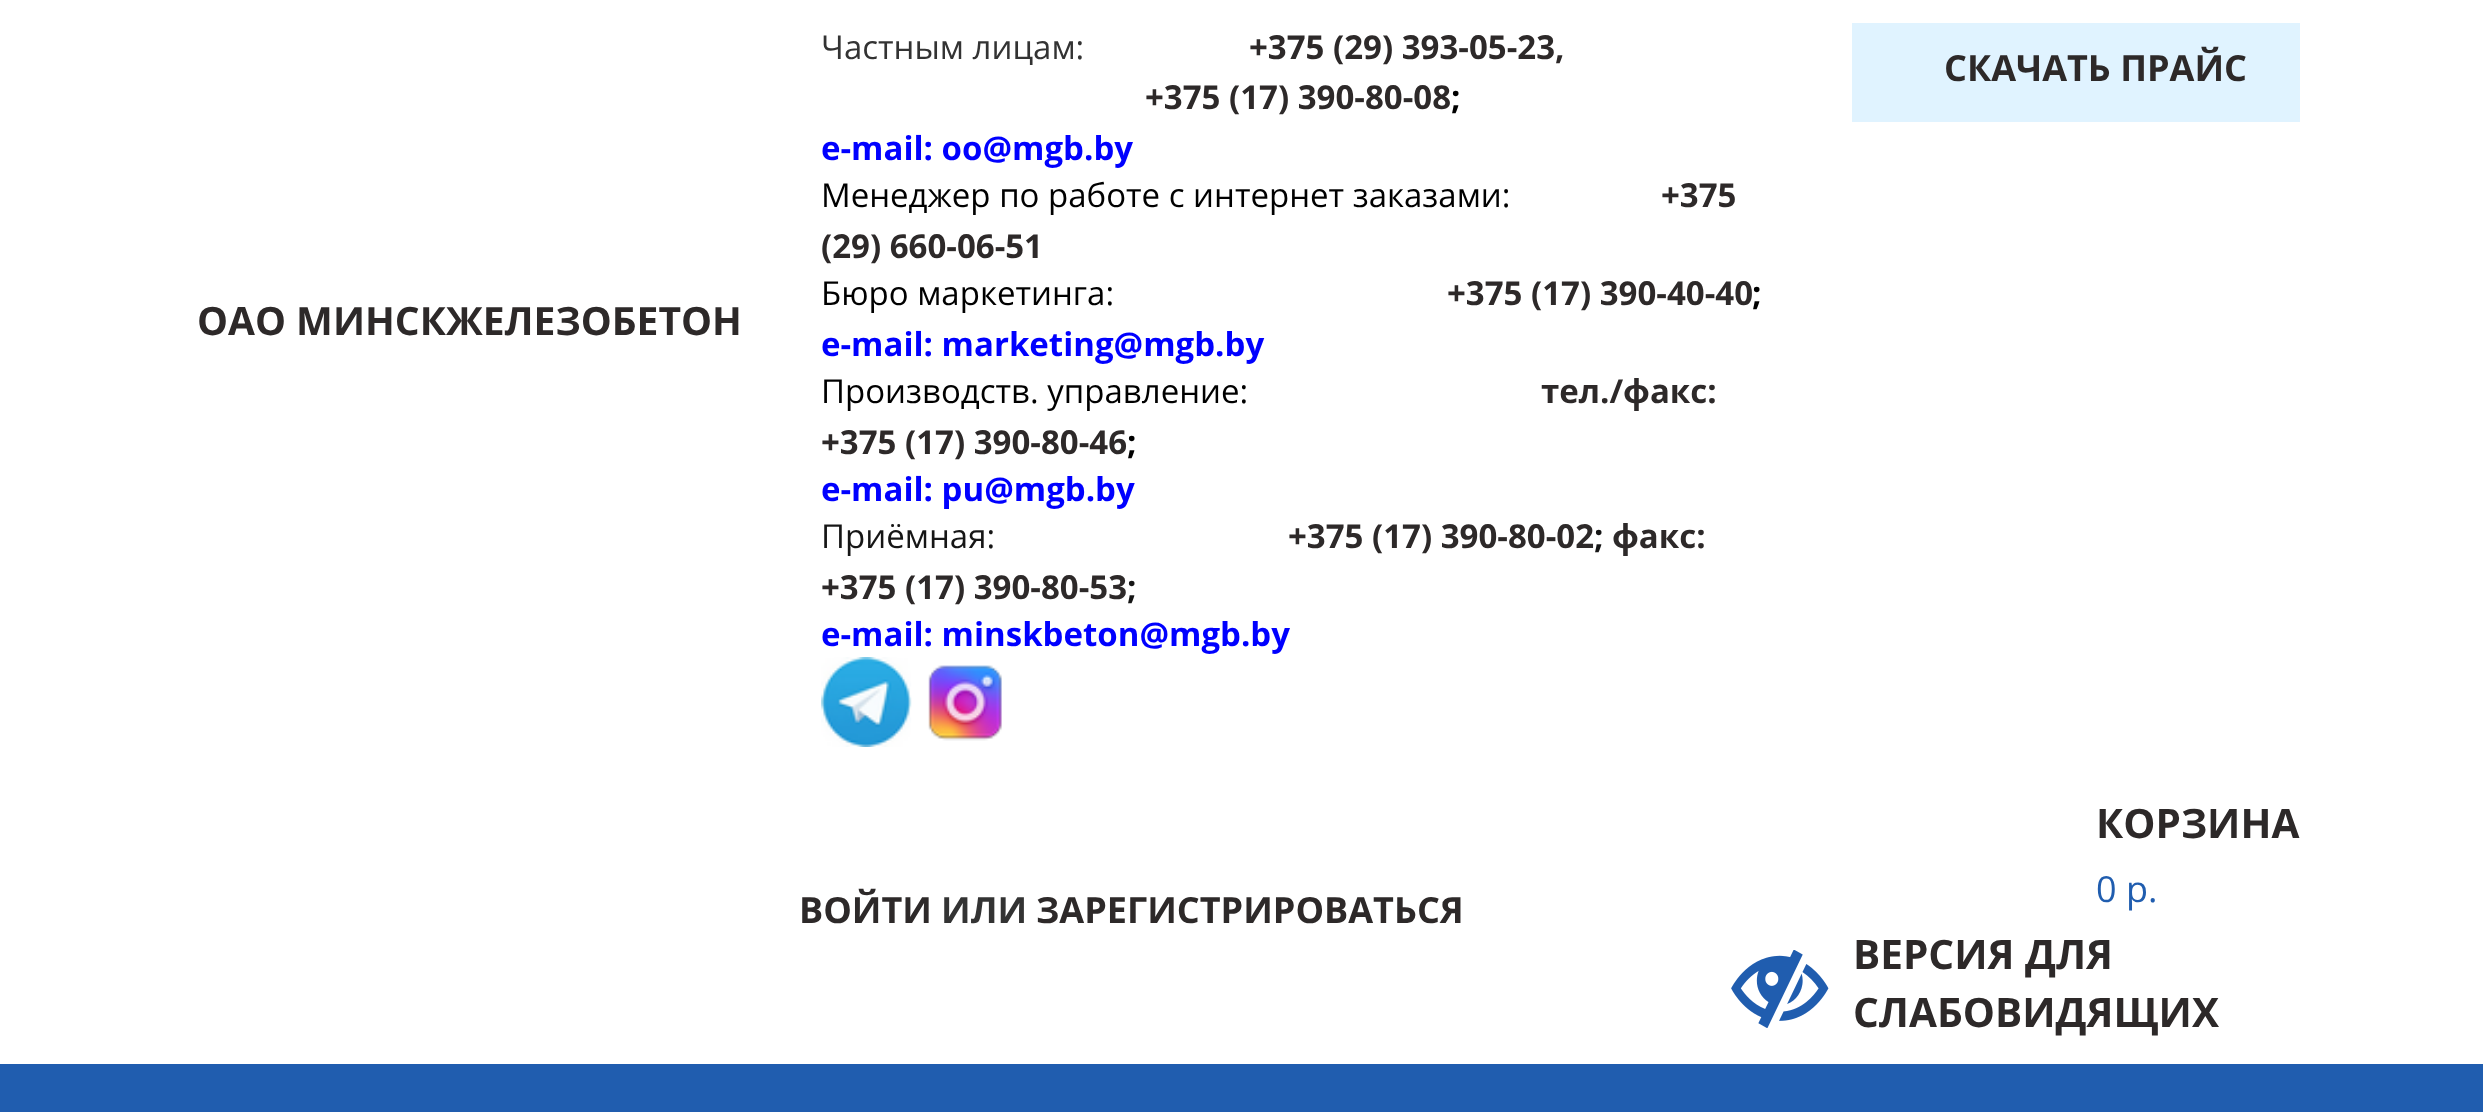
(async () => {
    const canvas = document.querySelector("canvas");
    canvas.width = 2483;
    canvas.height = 1112;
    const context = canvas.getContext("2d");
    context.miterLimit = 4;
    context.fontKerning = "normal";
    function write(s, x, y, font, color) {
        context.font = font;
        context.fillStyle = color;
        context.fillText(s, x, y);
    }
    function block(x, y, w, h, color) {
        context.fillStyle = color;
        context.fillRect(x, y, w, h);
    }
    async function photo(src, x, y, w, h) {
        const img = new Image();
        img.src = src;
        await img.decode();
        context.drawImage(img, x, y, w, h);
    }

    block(0, 0, 2483, 1112, "rgb(255, 255, 255)");
    write("ОАО МИНСКЖЕЛЕЗОБЕТОН", 197, 335, "bold 39px Open Sans", "rgb(45, 41, 41)");
    write("Частным лицам:", 821, 59, "33px Open Sans", "rgb(51, 51, 51)");
    write("+375 (29) 393-05-23,", 1249, 59, "bold 33px Open Sans", "rgb(45, 41, 41)");
    write("+375 (17) 390-80-08", 1145, 109, "bold 33px Open Sans", "rgb(45, 41, 41)");
    write(";", 1451, 109, "bold 33px Open Sans", "rgb(0, 0, 0)");
    write("e-mail: oo@mgb.by", 821, 160, "bold 33px Open Sans", "rgb(0, 0, 255)");
    write("Менеджер по работе с интернет заказами:", 821, 207, "33px Open Sans", "rgb(0, 0, 0)");
    write("+375", 1661, 207, "bold 33px Open Sans", "rgb(45, 41, 41)");
    write("(29) 660-06-51", 821, 258, "bold 33px Open Sans", "rgb(45, 41, 41)");
    write("Бюро маркетинга:", 821, 305, "33px Open Sans", "rgb(0, 0, 0)");
    write("+375 (17) 390-40-40", 1447, 305, "bold 33px Open Sans", "rgb(45, 41, 41)");
    write(";", 1752, 305, "bold 33px Open Sans", "rgb(0, 0, 0)");
    write("e-mail: marketing@mgb.by", 821, 356, "bold 33px Open Sans", "rgb(0, 0, 255)");
    write("Производств. управление:", 821, 403, "33px Open Sans", "rgb(0, 0, 0)");
    write("тел./факс:", 1541, 403, "bold 33px Open Sans", "rgb(45, 41, 41)");
    write("+375 (17) 390-80-46", 821, 454, "bold 33px Open Sans", "rgb(45, 41, 41)");
    write(";", 1127, 454, "bold 33px Open Sans", "rgb(0, 0, 0)");
    write("e-mail: pu@mgb.by", 821, 501, "bold 33px Open Sans", "rgb(0, 0, 255)");
    write("Приёмная:", 821, 548, "33px Open Sans", "rgb(22, 22, 22)");
    write("+375 (17) 390-80-02", 1288, 548, "bold 33px Open Sans", "rgb(45, 41, 41)");
    write(";", 1594, 548, "bold 33px Open Sans", "rgb(22, 22, 22)");
    write("факс:", 1612, 548, "bold 33px Open Sans", "rgb(45, 41, 41)");
    write("+375 (17) 390-80-53", 821, 599, "bold 33px Open Sans", "rgb(45, 41, 41)");
    write(";", 1127, 599, "bold 33px Open Sans", "rgb(22, 22, 22)");
    write("e-mail: minskbeton@mgb.by", 821, 646, "bold 33px Open Sans", "rgb(0, 0, 255)");
    await photo("media/1.png", 821, 657, 91, 90);
    await photo("media/2.png", 928, 665, 74, 76);
    block(1852, 23, 448, 99, "rgb(224, 243, 255)");
    write("СКАЧАТЬ ПРАЙС", 1944, 81, "bold 36px Open Sans", "rgb(45, 41, 41)");
    write("ВОЙТИ", 799, 923, "bold 36px Open Sans", "rgb(45, 41, 41)");
    write("ИЛИ", 941, 923, "bold 36px Open Sans", "rgb(51, 51, 51)");
    write("ЗАРЕГИСТРИРОВАТЬСЯ", 1036, 923, "bold 36px Open Sans", "rgb(45, 41, 41)");
    write("КОРЗИНА", 2096, 838, "bold 40.5px Open Sans", "rgb(45, 41, 41)");
    write("0 р.", 2096, 902, "36px Open Sans", "rgb(32, 93, 175)");
    await photo("media/3.png", 1731, 950, 98, 78);
    write("ВЕРСИЯ ДЛЯ", 1853, 969, "bold 40.5px Open Sans", "rgb(45, 41, 41)");
    write("СЛАБОВИДЯЩИХ", 1853, 1027, "bold 40.5px Open Sans", "rgb(45, 41, 41)");
    block(0, 1064, 2483, 48, "rgb(32, 93, 175)");
})();
